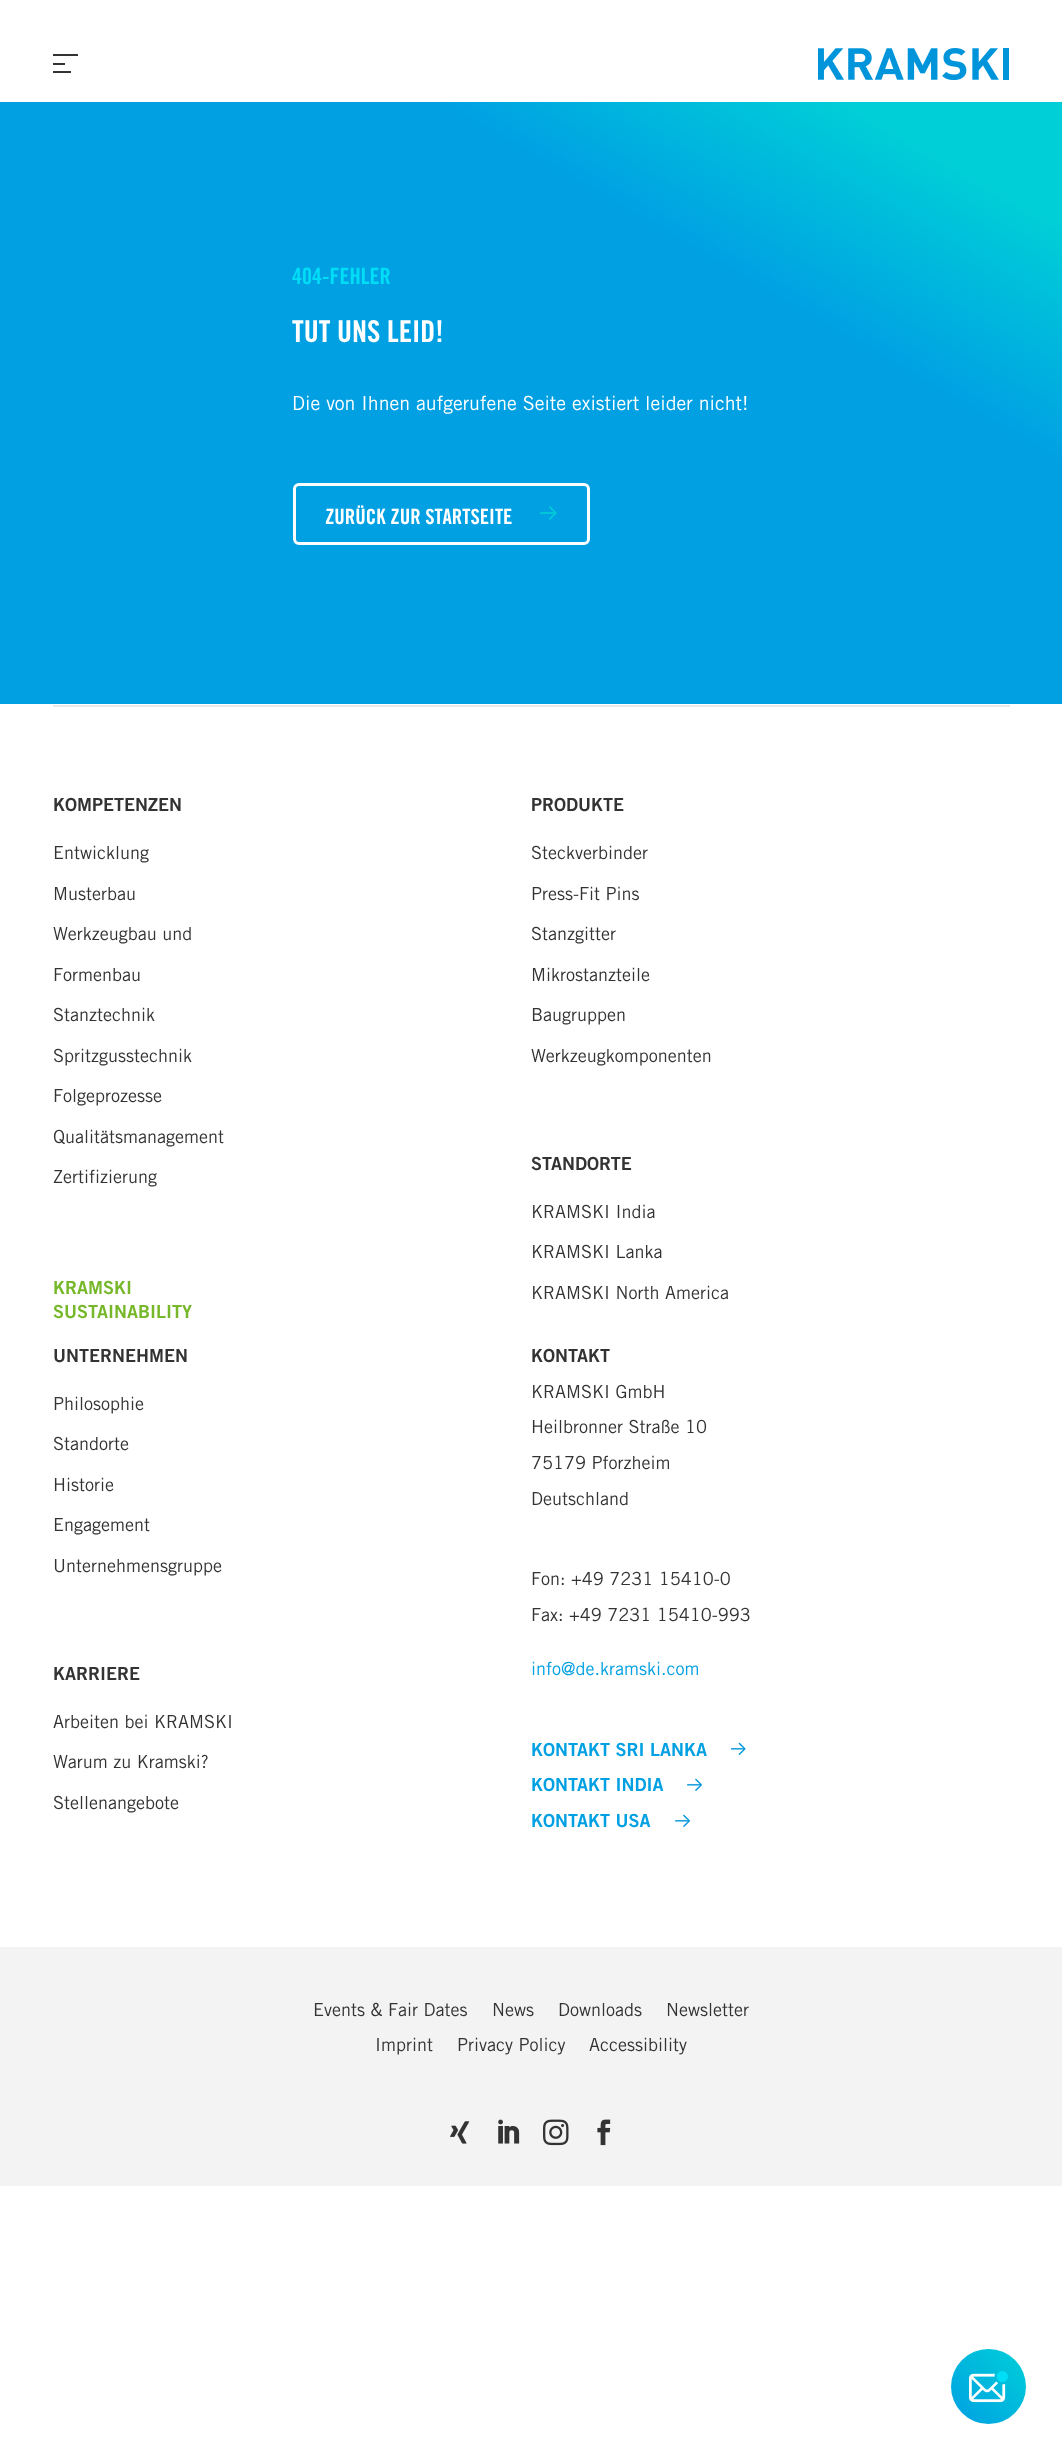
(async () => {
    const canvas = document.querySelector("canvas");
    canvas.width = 1062;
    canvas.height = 2460;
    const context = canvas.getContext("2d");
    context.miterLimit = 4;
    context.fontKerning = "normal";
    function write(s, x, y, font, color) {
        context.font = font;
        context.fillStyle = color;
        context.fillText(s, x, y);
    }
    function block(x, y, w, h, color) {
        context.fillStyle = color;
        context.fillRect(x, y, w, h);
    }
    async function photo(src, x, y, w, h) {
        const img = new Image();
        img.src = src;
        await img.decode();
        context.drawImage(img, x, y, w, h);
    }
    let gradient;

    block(0, 0, 1062, 2460, "rgb(255, 255, 255)");
    block(53, 54, 25, 2, "rgb(51, 51, 51)");
    block(53, 63, 12, 2, "rgb(51, 51, 51)");
    block(53, 71, 18, 2, "rgb(51, 51, 51)");
    await photo("media/1.png", 818, 48, 191, 32);
    gradient = context.createLinearGradient(268, 858, 794, -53);
    gradient.addColorStop(0.7, "rgb(0, 160, 227)");
    gradient.addColorStop(0.9, "rgb(0, 207, 215)");
    context.fillStyle = gradient;
    context.fillRect(0, 102, 1062, 602);
    write("404-FEHLER", 292, 284, "bold 22.5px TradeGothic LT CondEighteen", "rgb(0, 221, 246)");
    write("TUT UNS LEID!", 292, 342, "bold 30px TradeGothic LT CondEighteen", "rgb(255, 255, 255)");
    write("Die von Ihnen aufgerufene Seite existiert leider nicht!", 292, 410, "19.5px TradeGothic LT", "rgb(255, 255, 255)");
    context.beginPath();
    context.roundRect(294.5, 484.5, 294, 59, 4.5);
    context.strokeStyle = "rgb(255, 255, 255)";
    context.lineWidth = 3;
    context.stroke();
    write("ZURÜCK ZUR STARTSEITE", 325, 524, "bold 21px TradeGothic LT CondEighteen", "rgb(255, 255, 255)");
    await photo("media/2.png", 540, 506, 17, 14);
    block(53, 705, 957, 2, "rgb(232, 232, 232)");
    write("KOMPETENZEN", 53, 811, "bold 18px TradeGothic LT", "rgb(51, 51, 51)");
    write("Entwicklung", 53, 859, "18px TradeGothic LT", "rgb(51, 51, 51)");
    write("Musterbau", 53, 900, "18px TradeGothic LT", "rgb(51, 51, 51)");
    write("Werkzeugbau und", 53, 940, "18px TradeGothic LT", "rgb(51, 51, 51)");
    write("Formenbau", 53, 981, "18px TradeGothic LT", "rgb(51, 51, 51)");
    write("Stanztechnik", 53, 1021, "18px TradeGothic LT", "rgb(51, 51, 51)");
    write("Spritzgusstechnik", 53, 1062, "18px TradeGothic LT", "rgb(51, 51, 51)");
    write("Folgeprozesse", 53, 1102, "18px TradeGothic LT", "rgb(51, 51, 51)");
    write("Qualitätsmanagement", 53, 1143, "18px TradeGothic LT", "rgb(51, 51, 51)");
    write("Zertifizierung", 53, 1183, "18px TradeGothic LT", "rgb(51, 51, 51)");
    write("KRAMSKI", 53, 1294, "bold 18px TradeGothic LT", "rgb(119, 184, 42)");
    write("SUSTAINABILITY", 53, 1318, "bold 18px TradeGothic LT", "rgb(119, 184, 42)");
    write("PRODUKTE", 531, 811, "bold 18px TradeGothic LT", "rgb(51, 51, 51)");
    write("Steckverbinder", 531, 859, "18px TradeGothic LT", "rgb(51, 51, 51)");
    write("Press-Fit Pins", 531, 900, "18px TradeGothic LT", "rgb(51, 51, 51)");
    write("Stanzgitter", 531, 940, "18px TradeGothic LT", "rgb(51, 51, 51)");
    write("Mikrostanzteile", 531, 981, "18px TradeGothic LT", "rgb(51, 51, 51)");
    write("Baugruppen", 531, 1021, "18px TradeGothic LT", "rgb(51, 51, 51)");
    write("Werkzeugkomponenten", 531, 1062, "18px TradeGothic LT", "rgb(51, 51, 51)");
    write("STANDORTE", 531, 1170, "bold 18px TradeGothic LT", "rgb(51, 51, 51)");
    write("KRAMSKI India", 531, 1218, "18px TradeGothic LT", "rgb(51, 51, 51)");
    write("KRAMSKI Lanka", 531, 1258, "18px TradeGothic LT", "rgb(51, 51, 51)");
    write("KRAMSKI North America", 531, 1299, "18px TradeGothic LT", "rgb(51, 51, 51)");
    write("UNTERNEHMEN", 53, 1362, "bold 18px TradeGothic LT", "rgb(51, 51, 51)");
    write("Philosophie", 53, 1410, "18px TradeGothic LT", "rgb(51, 51, 51)");
    write("Standorte", 53, 1450, "18px TradeGothic LT", "rgb(51, 51, 51)");
    write("Historie", 53, 1491, "18px TradeGothic LT", "rgb(51, 51, 51)");
    write("Engagement", 53, 1531, "18px TradeGothic LT", "rgb(51, 51, 51)");
    write("Unternehmensgruppe", 53, 1572, "18px TradeGothic LT", "rgb(51, 51, 51)");
    write("KARRIERE", 53, 1680, "bold 18px TradeGothic LT", "rgb(51, 51, 51)");
    write("Arbeiten bei KRAMSKI", 53, 1728, "18px TradeGothic LT", "rgb(51, 51, 51)");
    write("Warum zu Kramski?", 53, 1768, "18px TradeGothic LT", "rgb(51, 51, 51)");
    write("Stellenangebote", 53, 1809, "18px TradeGothic LT", "rgb(51, 51, 51)");
    write("KONTAKT", 531, 1362, "bold 18px TradeGothic LT", "rgb(51, 51, 51)");
    write("KRAMSKI GmbH", 531, 1398, "18px TradeGothic LT", "rgb(51, 51, 51)");
    write("Heilbronner Straße 10", 531, 1433, "18px TradeGothic LT", "rgb(51, 51, 51)");
    write("75179 Pforzheim", 531, 1469, "18px TradeGothic LT", "rgb(51, 51, 51)");
    write("Deutschland", 531, 1505, "18px TradeGothic LT", "rgb(51, 51, 51)");
    write("Fon: +49 7231 15410-0", 531, 1585, "18px TradeGothic LT", "rgb(51, 51, 51)");
    write("Fax: +49 7231 15410-993", 531, 1621, "18px TradeGothic LT", "rgb(51, 51, 51)");
    write("info@de.kramski.com", 531, 1675, "18px TradeGothic LT", "rgb(0, 160, 227)");
    write("KONTAKT SRI LANKA", 531, 1756, "bold 18px TradeGothic LT", "rgb(0, 160, 227)");
    await photo("media/3.png", 731, 1742, 15, 13);
    write("KONTAKT INDIA", 531, 1791, "bold 18px TradeGothic LT", "rgb(0, 160, 227)");
    await photo("media/4.png", 687, 1778, 15, 13);
    write("KONTAKT USA", 531, 1827, "bold 18px TradeGothic LT", "rgb(0, 160, 227)");
    await photo("media/4.png", 675, 1814, 15, 13);
    block(0, 1947, 1062, 239, "rgb(243, 243, 243)");
    write("Events & Fair Dates", 313, 2016, "18px TradeGothic LT", "rgb(51, 51, 51)");
    write("News", 492, 2016, "18px TradeGothic LT", "rgb(51, 51, 51)");
    write("Downloads", 558, 2016, "18px TradeGothic LT", "rgb(51, 51, 51)");
    write("Newsletter", 666, 2016, "18px TradeGothic LT", "rgb(51, 51, 51)");
    write("Imprint", 375, 2051, "18px TradeGothic LT", "rgb(51, 51, 51)");
    write("Privacy Policy", 457, 2051, "18px TradeGothic LT", "rgb(51, 51, 51)");
    write("Accessibility", 589, 2051, "18px TradeGothic LT", "rgb(51, 51, 51)");
    await photo("media/5.png", 450, 2121, 20, 23);
    await photo("media/6.png", 498, 2119, 22, 25);
    await photo("media/7.png", 543, 2119, 26, 27);
    await photo("media/8.png", 597, 2119, 14, 27);
    gradient = context.createLinearGradient(1026, 2349, 951, 2424);
    gradient.addColorStop(0, "rgb(0, 207, 215)");
    gradient.addColorStop(1, "rgb(0, 160, 227)");
    context.fillStyle = gradient;
    context.beginPath();
    context.arc(988.5, 2386.5, 37.5, 0, Math.PI * 2);
    context.fill();
    await photo("media/9.png", 969, 2371, 39, 32);
})();
